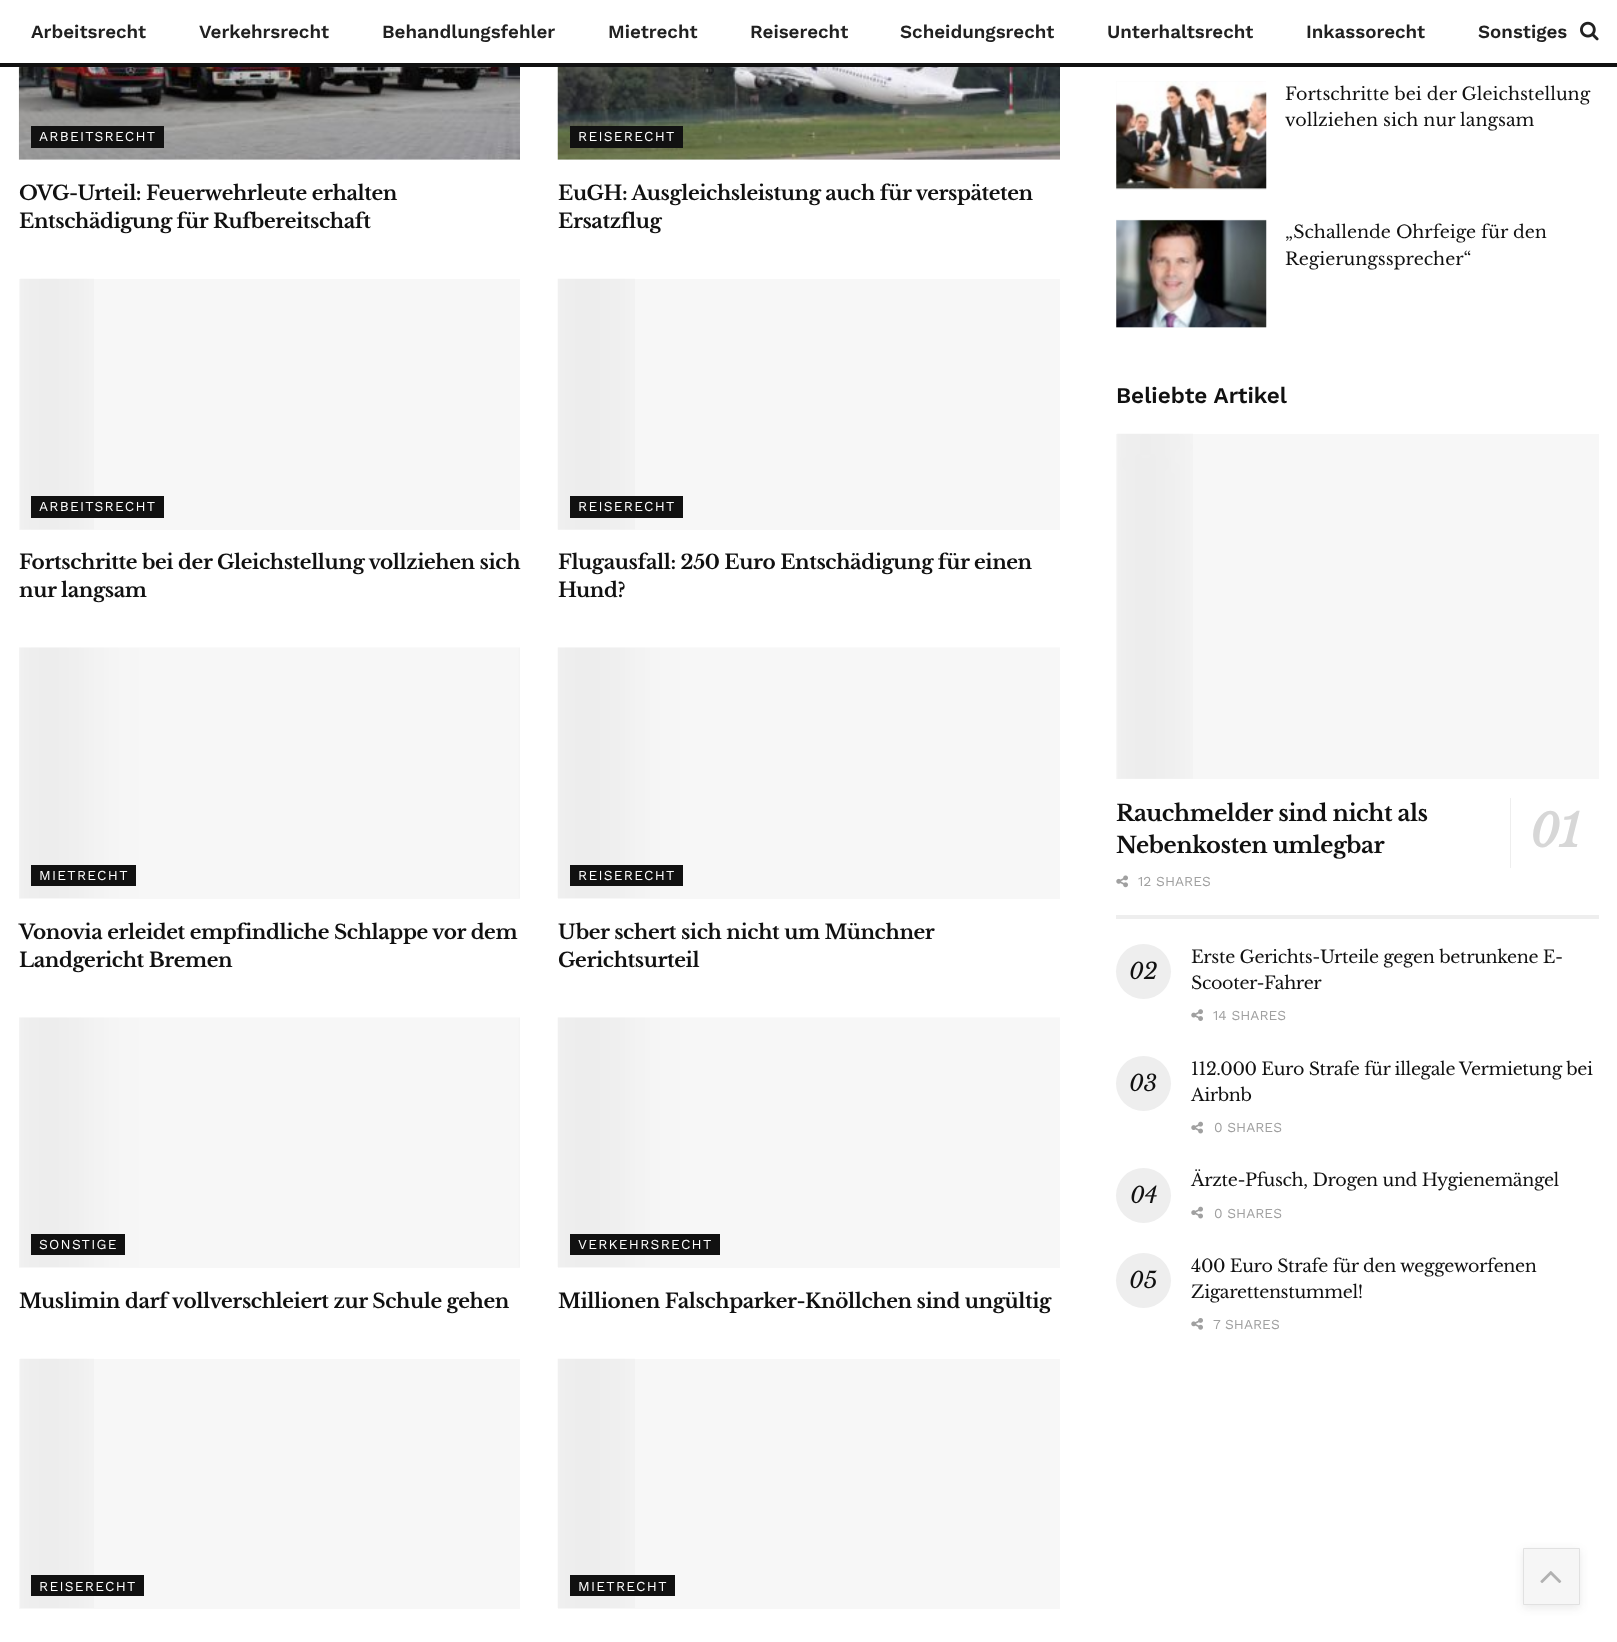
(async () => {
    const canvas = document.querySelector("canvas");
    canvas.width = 1617;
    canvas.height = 1642;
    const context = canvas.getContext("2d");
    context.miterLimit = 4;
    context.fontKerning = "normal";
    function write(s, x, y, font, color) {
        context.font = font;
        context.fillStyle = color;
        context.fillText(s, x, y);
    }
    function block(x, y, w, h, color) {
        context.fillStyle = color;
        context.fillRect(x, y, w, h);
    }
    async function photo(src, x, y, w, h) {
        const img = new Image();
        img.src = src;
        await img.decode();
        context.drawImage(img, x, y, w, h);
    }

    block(0, 0, 1617, 1642, "rgb(255, 255, 255)");
    block(0, 63, 1617, 4, "rgb(17, 17, 17)");
    write("Arbeitsrecht", 31, 38, "600 18.75px Work Sans", "rgb(33, 33, 33)");
    write("Verkehrsrecht", 199, 38, "600 18.75px Work Sans", "rgb(33, 33, 33)");
    write("Behandlungsfehler", 382, 38, "600 18.75px Work Sans", "rgb(33, 33, 33)");
    write("Mietrecht", 608, 38, "600 18.75px Work Sans", "rgb(33, 33, 33)");
    write("Reiserecht", 750, 38, "600 18.75px Work Sans", "rgb(33, 33, 33)");
    write("Scheidungsrecht", 900, 38, "600 18.75px Work Sans", "rgb(33, 33, 33)");
    write("Unterhaltsrecht", 1107, 38, "600 18.75px Work Sans", "rgb(33, 33, 33)");
    write("Inkassorecht", 1306, 38, "600 18.75px Work Sans", "rgb(33, 33, 33)");
    write("Sonstiges", 1478, 38, "600 18.75px Work Sans", "rgb(33, 33, 33)");
    await photo("media/1.png", 1580, 21, 19, 20);
    block(19, 159, 501, 1, "rgb(247, 247, 247)");
    await photo("media/2.png", 18, 67, 502, 93);
    block(31, 126, 133, 22, "rgb(17, 17, 17)");
    context.letterSpacing = "1.25px";
    write("ARBEITSRECHT", 39, 141, "13.75px Work Sans", "rgb(255, 255, 255)");
    context.letterSpacing = "-0.4px";
    write("OVG-Urteil: Feuerwehrleute erhalten", 19, 200, "bold 20px Libre Baskerville", "rgb(17, 17, 17)");
    write("Entschädigung für Rufbereitschaft", 19, 228, "bold 20px Libre Baskerville", "rgb(17, 17, 17)");
    block(558, 159, 502, 1, "rgb(247, 247, 247)");
    await photo("media/3.png", 557, 67, 503, 93);
    block(570, 126, 113, 22, "rgb(17, 17, 17)");
    context.letterSpacing = "1.25px";
    write("REISERECHT", 578, 141, "13.75px Work Sans", "rgb(255, 255, 255)");
    context.letterSpacing = "-0.4px";
    write("EuGH: Ausgleichsleistung auch für verspäteten", 558, 200, "bold 20px Libre Baskerville", "rgb(17, 17, 17)");
    write("Ersatzflug", 558, 228, "bold 20px Libre Baskerville", "rgb(17, 17, 17)");
    block(19, 279, 501, 251, "rgb(247, 247, 247)");
    await photo("media/4.png", 20, 278, 74, 252);
    block(31, 496, 133, 22, "rgb(17, 17, 17)");
    context.letterSpacing = "1.25px";
    write("ARBEITSRECHT", 39, 511, "13.75px Work Sans", "rgb(255, 255, 255)");
    context.letterSpacing = "-0.4px";
    write("Fortschritte bei der Gleichstellung vollziehen sich", 19, 569, "bold 20px Libre Baskerville", "rgb(17, 17, 17)");
    write("nur langsam", 19, 597, "bold 20px Libre Baskerville", "rgb(17, 17, 17)");
    block(558, 279, 502, 251, "rgb(247, 247, 247)");
    await photo("media/5.png", 557, 278, 78, 252);
    block(570, 496, 113, 22, "rgb(17, 17, 17)");
    context.letterSpacing = "1.25px";
    write("REISERECHT", 578, 511, "13.75px Work Sans", "rgb(255, 255, 255)");
    context.letterSpacing = "-0.4px";
    write("Flugausfall: 250 Euro Entschädigung für einen", 558, 569, "bold 20px Libre Baskerville", "rgb(17, 17, 17)");
    write("Hund?", 558, 597, "bold 20px Libre Baskerville", "rgb(17, 17, 17)");
    block(19, 898, 501, 1, "rgb(247, 247, 247)");
    await photo("media/6.png", 19, 647, 501, 251);
    block(31, 865, 105, 21, "rgb(17, 17, 17)");
    context.letterSpacing = "1.25px";
    write("MIETRECHT", 39, 880, "13.75px Work Sans", "rgb(255, 255, 255)");
    context.letterSpacing = "-0.4px";
    write("Vonovia erleidet empfindliche Schlappe vor dem", 19, 939, "bold 20px Libre Baskerville", "rgb(17, 17, 17)");
    write("Landgericht Bremen", 19, 967, "bold 20px Libre Baskerville", "rgb(17, 17, 17)");
    block(558, 898, 502, 1, "rgb(247, 247, 247)");
    await photo("media/7.png", 557, 647, 503, 251);
    block(570, 865, 113, 21, "rgb(17, 17, 17)");
    context.letterSpacing = "1.25px";
    write("REISERECHT", 578, 880, "13.75px Work Sans", "rgb(255, 255, 255)");
    context.letterSpacing = "-0.4px";
    write("Uber schert sich nicht um Münchner", 558, 939, "bold 20px Libre Baskerville", "rgb(17, 17, 17)");
    write("Gerichtsurteil", 558, 967, "bold 20px Libre Baskerville", "rgb(17, 17, 17)");
    block(19, 1267, 501, 1, "rgb(247, 247, 247)");
    await photo("media/8.png", 19, 1017, 501, 250);
    block(31, 1234, 94, 21, "rgb(17, 17, 17)");
    context.letterSpacing = "1.25px";
    write("SONSTIGE", 39, 1249, "13.75px Work Sans", "rgb(255, 255, 255)");
    context.letterSpacing = "-0.4px";
    write("Muslimin darf vollverschleiert zur Schule gehen", 19, 1308, "bold 20px Libre Baskerville", "rgb(17, 17, 17)");
    block(558, 1267, 502, 1, "rgb(247, 247, 247)");
    await photo("media/9.png", 557, 1017, 503, 250);
    block(570, 1234, 150, 21, "rgb(17, 17, 17)");
    context.letterSpacing = "1.25px";
    write("VERKEHRSRECHT", 578, 1249, "13.75px Work Sans", "rgb(255, 255, 255)");
    context.letterSpacing = "-0.4px";
    write("Millionen Falschparker-Knöllchen sind ungültig", 558, 1308, "bold 20px Libre Baskerville", "rgb(17, 17, 17)");
    block(19, 1359, 501, 250, "rgb(247, 247, 247)");
    await photo("media/10.png", 20, 1358, 74, 250);
    block(31, 1575, 113, 21, "rgb(17, 17, 17)");
    context.letterSpacing = "1.25px";
    write("REISERECHT", 39, 1591, "13.75px Work Sans", "rgb(255, 255, 255)");
    block(558, 1359, 502, 250, "rgb(247, 247, 247)");
    await photo("media/11.png", 557, 1358, 78, 250);
    block(570, 1575, 105, 21, "rgb(17, 17, 17)");
    write("MIETRECHT", 578, 1591, "13.75px Work Sans", "rgb(255, 255, 255)");
    block(1116, 81, 150, 108, "rgb(247, 247, 247)");
    await photo("media/12.png", 1116, 81, 151, 109);
    context.letterSpacing = "0px";
    write("Fortschritte bei der Gleichstellung", 1285, 100, "17.5px Libre Baskerville", "rgb(17, 17, 17)");
    write("vollziehen sich nur langsam", 1285, 126, "17.5px Libre Baskerville", "rgb(17, 17, 17)");
    block(1116, 220, 150, 108, "rgb(247, 247, 247)");
    await photo("media/13.png", 1116, 219, 151, 109);
    write("„Schallende Ohrfeige für den", 1285, 238, "17.5px Libre Baskerville", "rgb(17, 17, 17)");
    write("Regierungssprecher“", 1285, 265, "17.5px Libre Baskerville", "rgb(17, 17, 17)");
    write("Beliebte Artikel", 1116, 403, "600 22.5px Work Sans", "rgb(17, 17, 17)");
    block(1116, 915, 483, 4, "rgb(238, 238, 238)");
    block(1116, 434, 483, 345, "rgb(247, 247, 247)");
    await photo("media/14.png", 1117, 433, 76, 346);
    context.letterSpacing = "-0.45px";
    write("Rauchmelder sind nicht als", 1116, 821, "bold 22.5px Libre Baskerville", "rgb(17, 17, 17)");
    block(1510, 798, 1, 70, "rgb(238, 238, 238)");
    write("01", 1530, 847, "italic bold 45px Libre Baskerville", "rgb(215, 215, 215)");
    write("Nebenkosten umlegbar", 1116, 853, "bold 22.5px Libre Baskerville", "rgb(17, 17, 17)");
    await photo("media/15.png", 1116, 875, 12, 13);
    context.letterSpacing = "0px";
    write("12 SHARES", 1138, 886, "13.75px Work Sans", "rgb(160, 160, 160)");
    context.letterSpacing = "-0.35px";
    write("Erste Gerichts-Urteile gegen betrunkene E-", 1191, 963, "17.5px Libre Baskerville", "rgb(17, 17, 17)");
    context.fillStyle = "rgb(238, 238, 238)";
    context.beginPath();
    context.arc(1143.5, 971.5, 27.5, 0, Math.PI * 2);
    context.fill();
    write("02", 1129, 979, "italic 22.5px Libre Baskerville", "rgb(17, 17, 17)");
    write("Scooter-Fahrer", 1191, 989, "17.5px Libre Baskerville", "rgb(17, 17, 17)");
    await photo("media/16.png", 1191, 1009, 12, 12);
    context.letterSpacing = "0px";
    write("14 SHARES", 1213, 1020, "13.75px Work Sans", "rgb(160, 160, 160)");
    context.letterSpacing = "-0.35px";
    write("112.000 Euro Strafe für illegale Vermietung bei", 1191, 1075, "17.5px Libre Baskerville", "rgb(17, 17, 17)");
    context.fillStyle = "rgb(238, 238, 238)";
    context.beginPath();
    context.arc(1143.5, 1083.5, 27.5, 0, Math.PI * 2);
    context.fill();
    write("03", 1129, 1091, "italic 22.5px Libre Baskerville", "rgb(17, 17, 17)");
    write("Airbnb", 1191, 1101, "17.5px Libre Baskerville", "rgb(17, 17, 17)");
    await photo("media/17.png", 1191, 1121, 12, 13);
    context.letterSpacing = "0px";
    write("0 SHARES", 1214, 1132, "13.75px Work Sans", "rgb(160, 160, 160)");
    context.letterSpacing = "-0.35px";
    write("Ärzte-Pfusch, Drogen und Hygienemängel", 1191, 1186, "17.5px Libre Baskerville", "rgb(17, 17, 17)");
    context.fillStyle = "rgb(238, 238, 238)";
    context.beginPath();
    context.arc(1143.5, 1195.5, 27.5, 0, Math.PI * 2);
    context.fill();
    write("04", 1130, 1203, "italic 22.5px Libre Baskerville", "rgb(17, 17, 17)");
    await photo("media/17.png", 1191, 1206, 12, 13);
    context.letterSpacing = "0px";
    write("0 SHARES", 1214, 1218, "13.75px Work Sans", "rgb(160, 160, 160)");
    context.letterSpacing = "-0.35px";
    write("400 Euro Strafe für den weggeworfenen", 1191, 1272, "17.5px Libre Baskerville", "rgb(17, 17, 17)");
    context.fillStyle = "rgb(238, 238, 238)";
    context.beginPath();
    context.arc(1143.5, 1280.5, 27.5, 0, Math.PI * 2);
    context.fill();
    write("05", 1129, 1288, "italic 22.5px Libre Baskerville", "rgb(17, 17, 17)");
    write("Zigarettenstummel!", 1191, 1298, "17.5px Libre Baskerville", "rgb(17, 17, 17)");
    await photo("media/18.png", 1191, 1318, 12, 12);
    context.letterSpacing = "0px";
    write("7 SHARES", 1213, 1329, "13.75px Work Sans", "rgb(160, 160, 160)");
    context.fillStyle = "rgba(51, 51, 51, 0.1)";
    context.filter = "blur(4px)";
    context.beginPath();
    context.rect(1523, 1550, 57, 58);
    context.fill();
    context.filter = "none";
    context.fillStyle = "rgb(246, 246, 246)";
    context.beginPath();
    context.rect(1523.5, 1548.5, 56, 56);
    context.fill();
    context.strokeStyle = "rgb(225, 225, 225)";
    context.stroke();
    await photo("media/19.png", 1540, 1571, 22, 12);
})();
